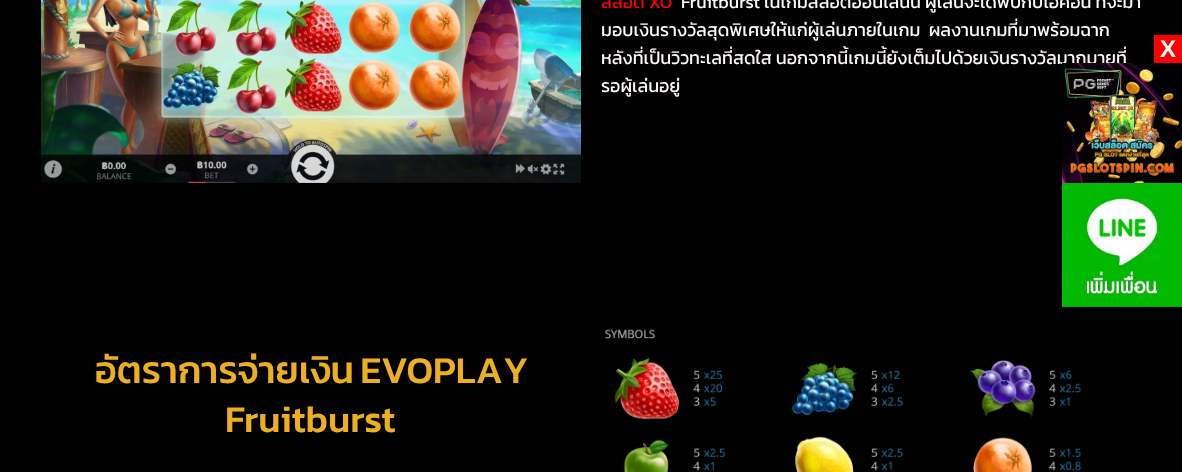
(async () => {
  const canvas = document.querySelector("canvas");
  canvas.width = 1182;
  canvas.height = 472;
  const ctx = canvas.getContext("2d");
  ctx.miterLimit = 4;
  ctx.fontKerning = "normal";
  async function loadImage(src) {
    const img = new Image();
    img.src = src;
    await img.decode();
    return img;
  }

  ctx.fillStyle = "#000000";
  ctx.fillRect(0, 0, 1182, 472);
  ctx.drawImage(await loadImage("img/1.png"), 41, 0, 540, 184);
  ctx.drawImage(await loadImage("img/2.png"), 604, 329, 478, 143);
  ctx.fillStyle = "#ff0000";
  ctx.fillRect(1154, 35, 28, 28);
  ctx.drawImage(await loadImage("img/4.png"), 1062, 183, 120, 124);
  ctx.font = "18px Kanit";
  ctx.fillText("สล็อต XO", 601, 8);
  ctx.fillStyle = "#fff9f9";
  for (const [text, x, y] of [
    ["Fruitburst ในเกมสล็อตออนไลน์นี้ ผู้เล่นจะได้พบกับไอคอน ที่จะมา", 681, 8],
    ["มอบเงินรางวัลสุดพิเศษให้แก่ผู้เล่นภายในเกม  ผลงานเกมที่มาพร้อมฉาก", 601, 36],
    ["หลังที่เป็นวิวทะเลที่สดใส นอกจากนี้เกมนี้ยังเต็มไปด้วยเงินรางวัลมากมายที่", 601, 64],
    ["รอผู้เล่นอยู่", 601, 92],
  ]) {
    ctx.fillText(text, x, y);
  }
  ctx.wordSpacing = "-2px";
  ctx.font = "500 38px Kanit";
  ctx.fillStyle = "#ecaf1f";
  ctx.fillText("อัตราการจ่ายเงิน EVOPLAY", 95, 383);
  ctx.wordSpacing = "0px";
  ctx.fillText("Fruitburst", 225, 432);
  ctx.font = "bold 24px Liberation Sans";
  ctx.fillStyle = "#ffffff";
  ctx.fillText("X", 1160, 57);
  ctx.drawImage(await loadImage("img/3.png"), 1062, 63, 120, 120);
})();
